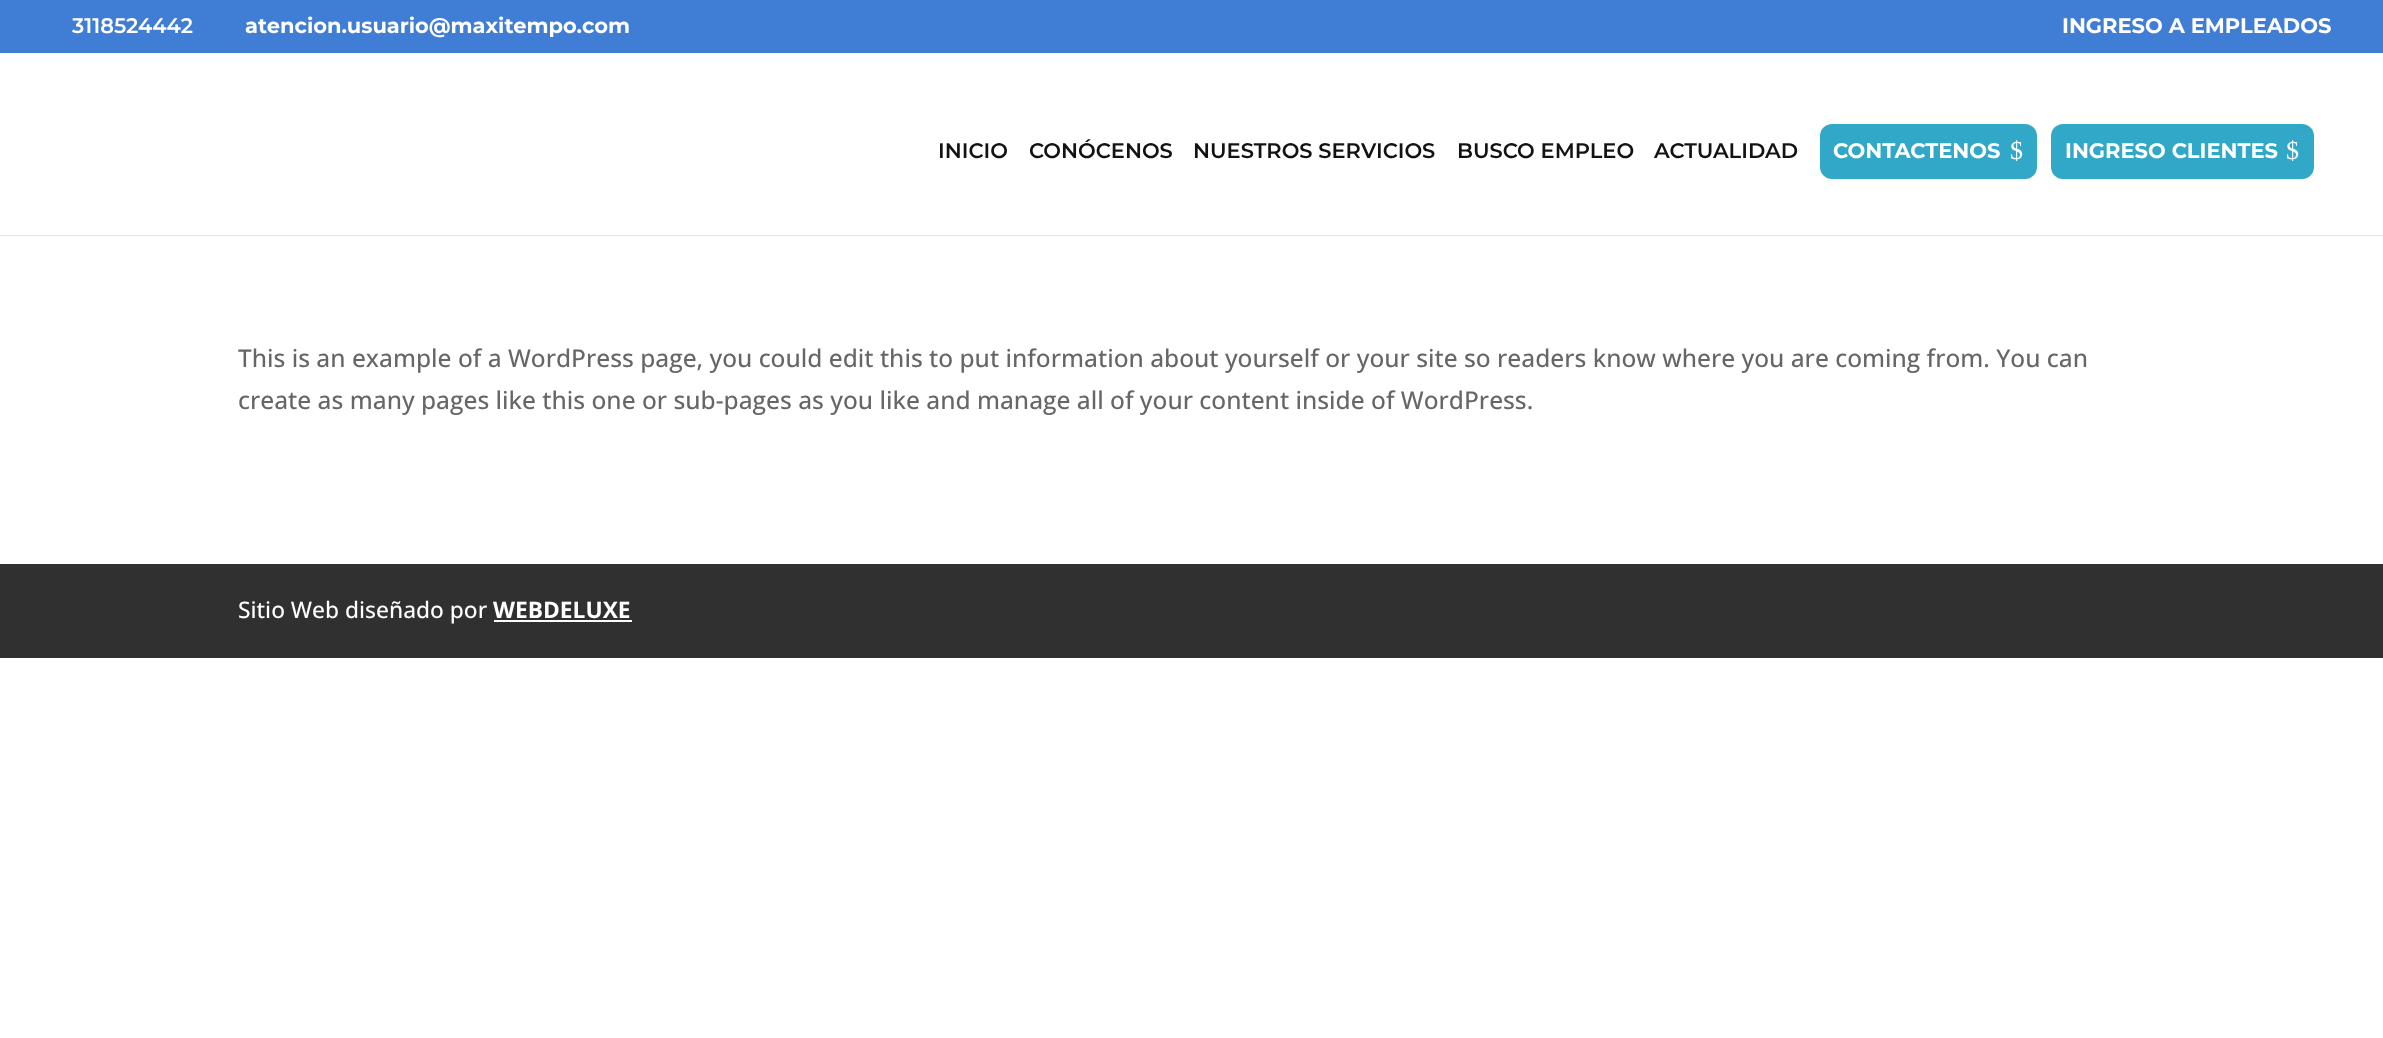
(async () => {
  const canvas = document.querySelector("canvas");
  canvas.width = 2383;
  canvas.height = 1038;
  const ctx = canvas.getContext("2d");
  ctx.miterLimit = 4;
  ctx.fontKerning = "normal";
  let path;

  ctx.fillStyle = "#ffffff";
  ctx.fillRect(0, 0, 2383, 1038);
  ctx.fillStyle = "#407dd5";
  ctx.fillRect(0, 0, 2383, 53);
  ctx.fillStyle = "#e6e6e6";
  path = new Path2D("M0 234V236H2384V54V234Z");
  ctx.fill(path);
  ctx.fillStyle = "#ffffff";
  ctx.fillRect(0, 234, 2383, 1);
  ctx.fillStyle = "#31a8c7";
  ctx.beginPath();
  ctx.roundRect(1820, 124, 217, 55, 12);
  ctx.fill();
  ctx.beginPath();
  ctx.roundRect(2051, 124, 263, 55, 12);
  ctx.fill();
  ctx.fillStyle = "#303030";
  ctx.fillRect(0, 564, 2383, 94);
  ctx.fillStyle = "#ffffff";
  ctx.fillRect(494, 620, 138, 2);
  ctx.font = "600 21px Montserrat";
  ctx.fillText("3118524442", 72, 33);
  ctx.font = "bold 21px Montserrat";
  ctx.fillText("atencion.usuario@maxitempo.com", 245, 33);
  ctx.fillText("INGRESO A EMPLEADOS", 2062, 33);
  ctx.font = "600 21px Montserrat";
  ctx.fillStyle = "#121212";
  for (const [text, x, y] of [
    ["INICIO", 938, 158],
    ["CONÓCENOS", 1029, 158],
    ["NUESTROS SERVICIOS", 1193, 158],
    ["BUSCO EMPLEO", 1457, 158],
    ["ACTUALIDAD", 1654, 158],
  ]) {
    ctx.fillText(text, x, y);
  }
  ctx.font = "bold 21px Montserrat";
  ctx.fillStyle = "#ffffff";
  ctx.fillText("CONTACTENOS", 1833, 158);
  ctx.font = "26px Liberation Serif";
  ctx.fillText("$", 2010, 159);
  ctx.font = "bold 21px Montserrat";
  ctx.fillText("INGRESO CLIENTES", 2065, 158);
  ctx.font = "26px Liberation Serif";
  ctx.fillText("$", 2286, 159);
  ctx.font = "500 24.5px Open Sans";
  ctx.fillStyle = "#666666";
  ctx.fillText("This is an example of a WordPress page, you could edit this to put information about yourself or your site so readers know where you are coming from. You can", 238, 367);
  ctx.fillText("create as many pages like this one or sub-pages as you like and manage all of your content inside of WordPress.", 238, 409);
  ctx.font = "500 22.75px Open Sans";
  ctx.fillStyle = "#ffffff";
  ctx.fillText("Sitio Web diseñado por", 238, 618);
  ctx.font = "bold 22.75px Open Sans";
  ctx.fillText("WEBDELUXE", 493, 618);
})();
